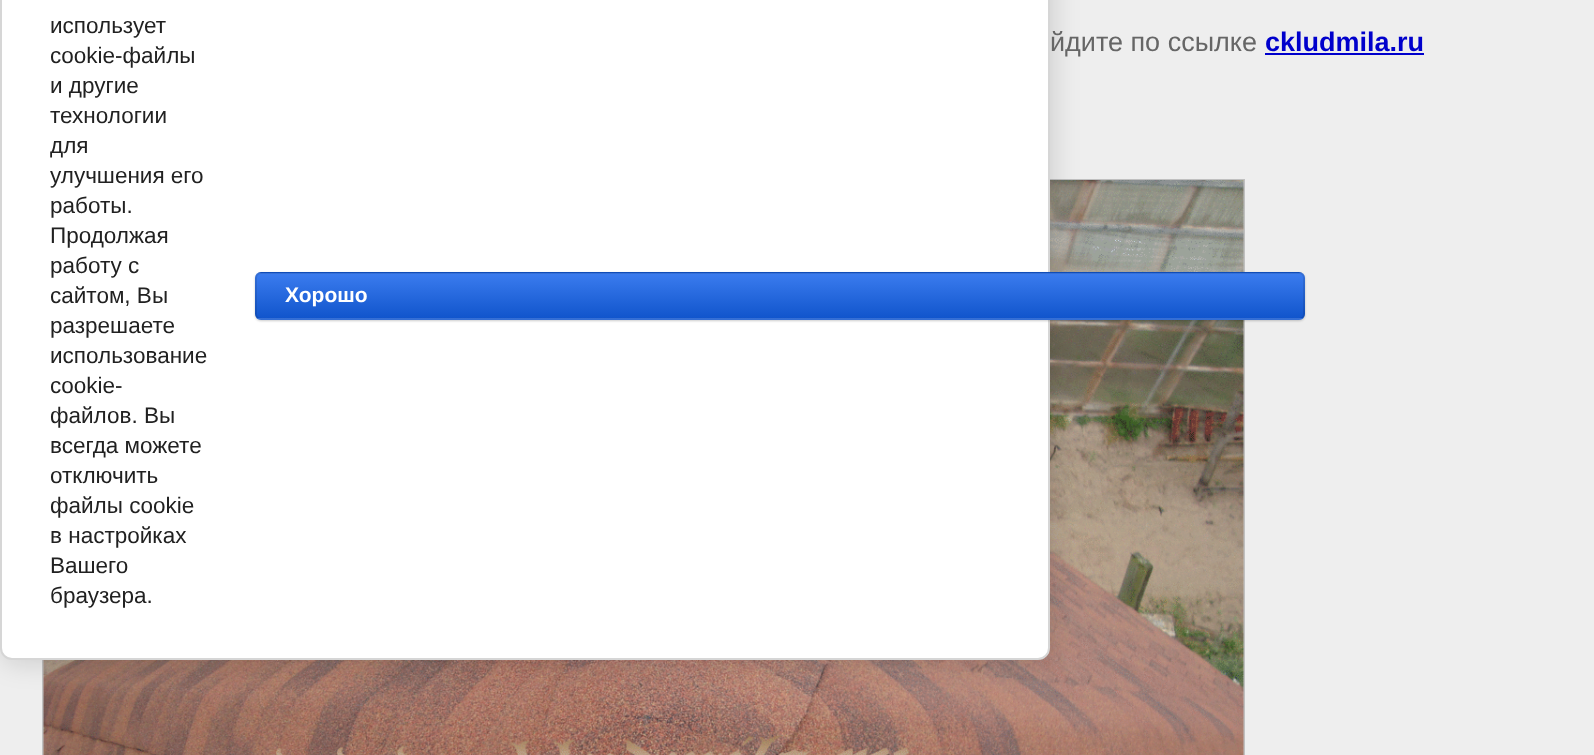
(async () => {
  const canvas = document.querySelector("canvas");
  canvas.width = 1594;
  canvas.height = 755;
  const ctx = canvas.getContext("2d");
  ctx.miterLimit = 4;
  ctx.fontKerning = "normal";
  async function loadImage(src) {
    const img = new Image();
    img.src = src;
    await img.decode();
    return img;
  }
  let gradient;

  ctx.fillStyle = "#eeeeee";
  ctx.fillRect(0, 0, 1594, 755);
  ctx.strokeStyle = "#c0c0c0";
  ctx.lineWidth = 2;
  ctx.strokeRect(43, 180, 1201, 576);
  ctx.drawImage(await loadImage("img/1.png"), 43, 180, 1201, 575);
  ctx.fillStyle = "rgba(0, 0, 0, 0.14)";
  ctx.filter = "blur(13.5px)";
  ctx.beginPath();
  ctx.roundRect(3, -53, 1050, 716, 12);
  ctx.fill();
  ctx.filter = "none";
  ctx.fillStyle = "#ffffff";
  ctx.beginPath();
  ctx.roundRect(1, -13, 1048, 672, 11);
  ctx.fill();
  ctx.strokeStyle = "#d6d6d6";
  ctx.stroke();
  ctx.fillStyle = "rgba(0, 0, 0, 0.2)";
  ctx.filter = "blur(1px)";
  ctx.beginPath();
  ctx.roundRect(255, 273, 1050, 48, 6);
  ctx.fill();
  ctx.filter = "none";
  ctx.save();
  ctx.beginPath();
  ctx.roundRect(255, 272, 1050, 48, 6);
  ctx.clip();
  gradient = ctx.createLinearGradient(780, 228, 780, 273);
  gradient.addColorStop(0, "#3b7cef");
  gradient.addColorStop(1, "#1155cc");
  ctx.fillStyle = gradient;
  ctx.fillRect(255, 272, 1050, 1);
  gradient = ctx.createLinearGradient(780, 273, 780, 318);
  gradient.addColorStop(0, "#3b7cef");
  gradient.addColorStop(1, "#1155cc");
  ctx.fillStyle = gradient;
  ctx.fillRect(255, 273, 1050, 45);
  gradient = ctx.createLinearGradient(780, 318, 780, 363);
  gradient.addColorStop(0, "#3b7cef");
  gradient.addColorStop(1, "#1155cc");
  ctx.fillStyle = gradient;
  ctx.fillRect(255, 318, 1050, 2);
  ctx.restore();
  ctx.beginPath();
  ctx.roundRect(256, 273, 1048, 46, 5);
  ctx.strokeStyle = "rgba(0, 0, 0, 0.1)";
  ctx.stroke();
  ctx.fillStyle = "#0000cc";
  ctx.fillRect(1265, 53, 159, 2);
  ctx.font = "22.5px Liberation Sans";
  ctx.fillStyle = "#212121";
  for (const [text, x, y] of [
    ["использует", 50, 33],
    ["cookie-файлы", 50, 63],
    ["и другие", 50, 93],
    ["технологии", 50, 123],
    ["для", 50, 153],
    ["улучшения его", 50, 183],
    ["работы.", 50, 213],
    ["Продолжая", 50, 243],
    ["работу с", 50, 273],
    ["сайтом, Вы", 50, 303],
    ["разрешаете", 50, 333],
    ["использование", 50, 363],
    ["cookie-", 50, 393],
    ["файлов. Вы", 50, 423],
    ["всегда можете", 50, 453],
    ["отключить", 50, 483],
    ["файлы cookie", 50, 513],
    ["в настройках", 50, 543],
    ["Вашего", 50, 573],
    ["браузера.", 50, 603],
  ]) {
    ctx.fillText(text, x, y);
  }
  ctx.font = "bold 21px Liberation Sans";
  ctx.fillStyle = "#ffffff";
  ctx.fillText("Хорошо", 285, 302);
  ctx.font = "27px Liberation Sans";
  ctx.fillStyle = "#666666";
  ctx.fillText("йдите по ссылке", 1050, 51);
  ctx.font = "bold 27px Liberation Sans";
  ctx.fillStyle = "#0000cc";
  ctx.fillText("ckludmila.ru", 1265, 51);
})();
